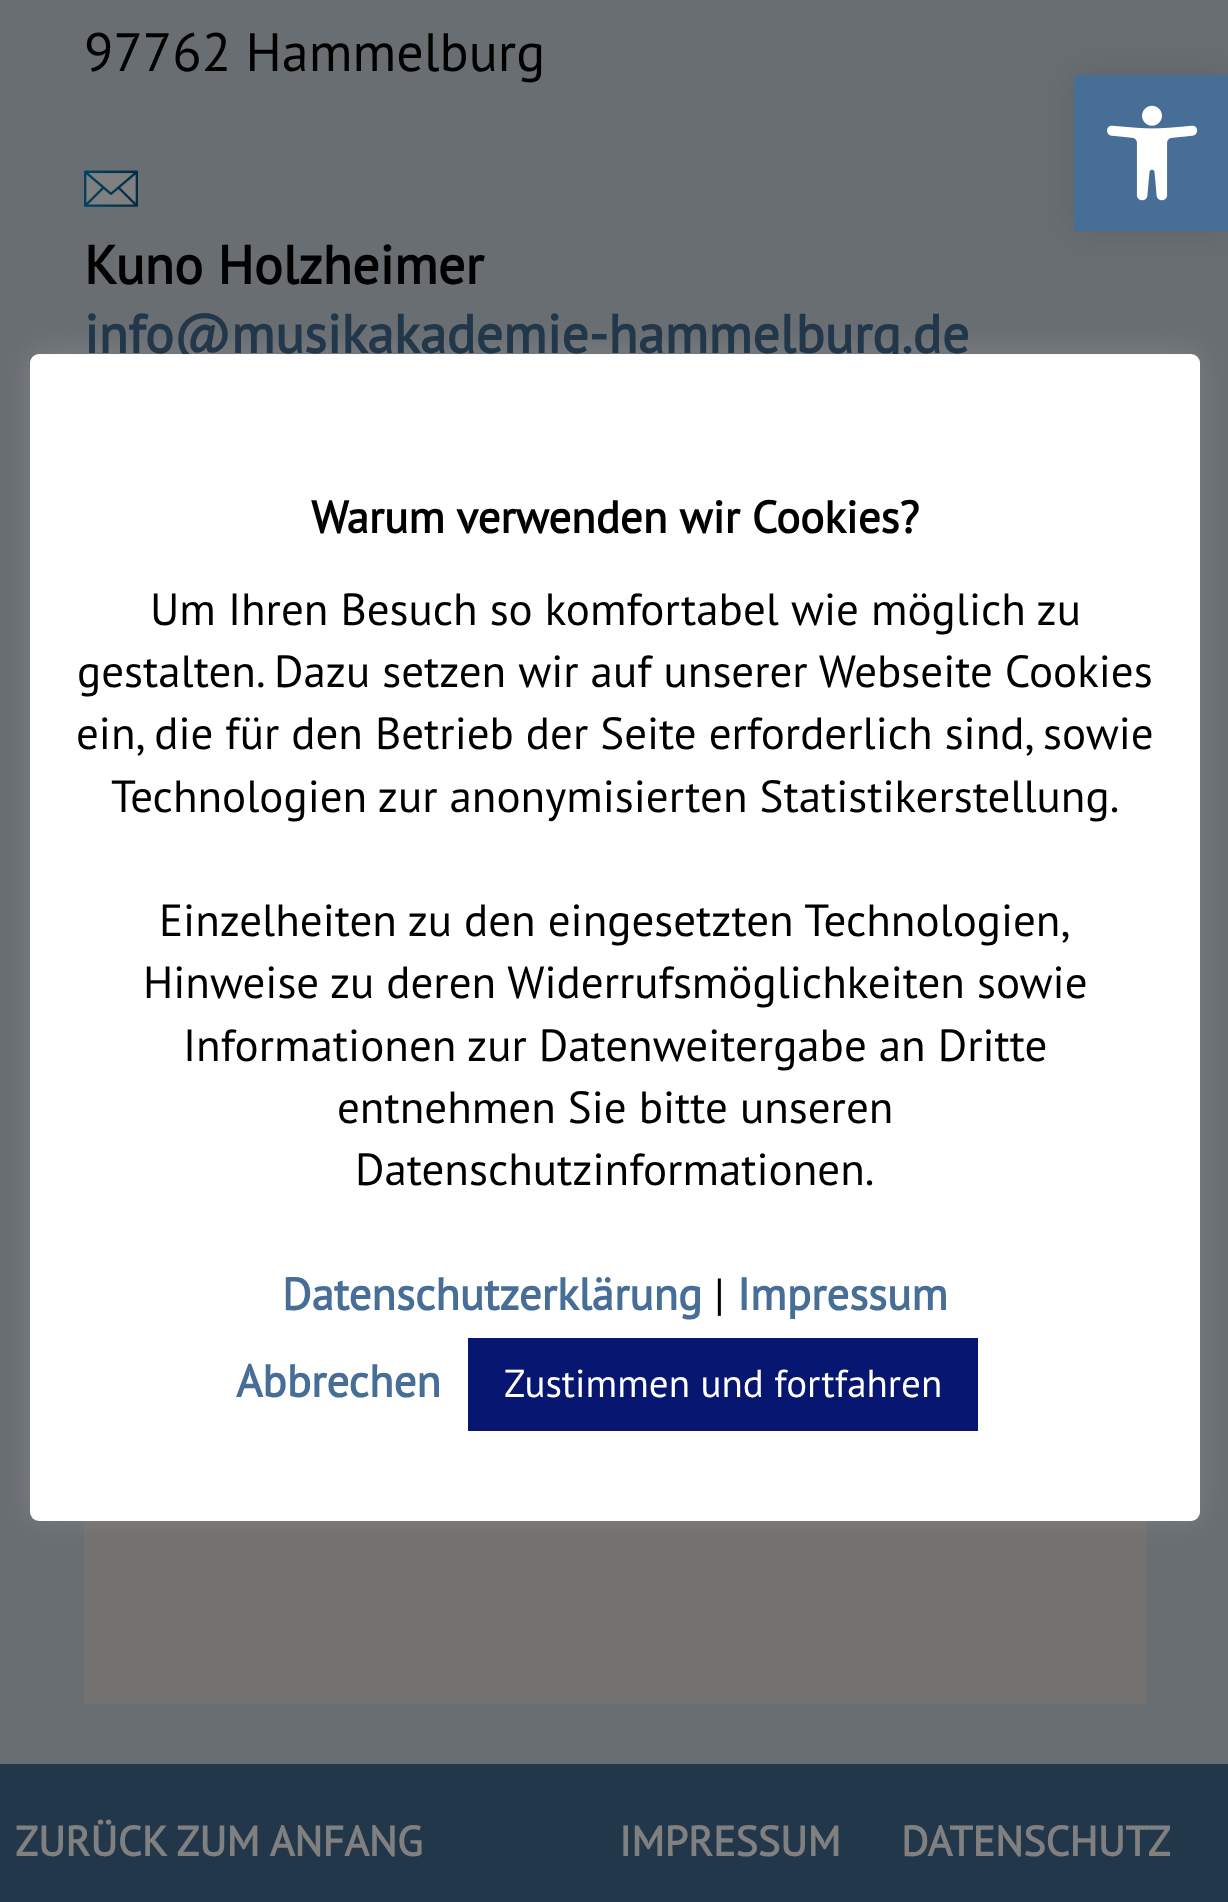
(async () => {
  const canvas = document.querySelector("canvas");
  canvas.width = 1228;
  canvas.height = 1902;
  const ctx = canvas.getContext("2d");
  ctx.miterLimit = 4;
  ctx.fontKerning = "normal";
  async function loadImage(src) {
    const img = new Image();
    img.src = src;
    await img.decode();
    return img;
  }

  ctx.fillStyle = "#696e73";
  ctx.fillRect(0, 0, 1228, 1902);
  ctx.fillStyle = "rgba(0, 0, 0, 0.1)";
  ctx.filter = "blur(15px)";
  ctx.beginPath();
  ctx.rect(1074, 75, 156, 156);
  ctx.fill();
  ctx.filter = "none";
  ctx.fillStyle = "#466e96";
  ctx.fillRect(1074, 75, 154, 156);
  ctx.drawImage(await loadImage("img/1.png"), 1107, 105, 91, 96);
  ctx.drawImage(await loadImage("img/2.png"), 84, 170, 54, 37);
  ctx.fillStyle = "#737270";
  ctx.fillRect(84, 1521, 1062, 183);
  ctx.fillStyle = "rgba(172, 171, 171, 0.3)";
  ctx.filter = "blur(15px)";
  ctx.beginPath();
  ctx.roundRect(30, 351, 1170, 1167, 9);
  ctx.fill();
  ctx.filter = "none";
  ctx.fillStyle = "#23374b";
  ctx.fillRect(0, 1764, 1228, 138);
  ctx.font = "54px PT Sans";
  ctx.fillStyle = "#000000";
  ctx.fillText("97762 Hammelburg", 84, 71);
  ctx.font = "bold 54px PT Sans";
  ctx.fillText("Kuno Holzheimer", 84, 284);
  ctx.fillStyle = "#23374b";
  ctx.fillText("info@musikakademie-hammelburg.de", 84, 353);
  ctx.fillStyle = "#ffffff";
  ctx.beginPath();
  ctx.roundRect(30, 354, 1170, 1167, 9);
  ctx.fill();
  ctx.font = "bold 45px PT Sans";
  ctx.fillStyle = "#000000";
  ctx.fillText("Warum verwenden wir Cookies?", 311, 533);
  ctx.font = "45px PT Sans";
  for (const [text, x, y] of [
    ["Um Ihren Besuch so komfortabel wie möglich zu", 150, 625],
    ["gestalten. Dazu setzen wir auf unserer Webseite Cookies", 77, 687],
    ["ein, die für den Betrieb der Seite erforderlich sind, sowie", 76, 749],
    ["Technologien zur anonymisierten Statistikerstellung.", 111, 812],
    ["Einzelheiten zu den eingesetzten Technologien,", 159, 936],
    ["Hinweise zu deren Widerrufsmöglichkeiten sowie", 143, 998],
    ["Informationen zur Datenweitergabe an Dritte", 183, 1061],
    ["entnehmen Sie bitte unseren", 337, 1123],
    ["Datenschutzinformationen.", 355, 1185],
  ]) {
    ctx.fillText(text, x, y);
  }
  ctx.font = "bold 45px PT Sans";
  ctx.fillStyle = "#466e96";
  ctx.fillText("Datenschutzerklärung", 282, 1310);
  ctx.font = "45px PT Sans";
  ctx.fillStyle = "#000000";
  ctx.fillText("|", 714, 1310);
  ctx.font = "bold 45px PT Sans";
  ctx.fillStyle = "#466e96";
  ctx.fillText("Impressum", 737, 1310);
  ctx.fillText("Abbrechen", 236, 1397);
  ctx.fillStyle = "#061671";
  ctx.fillRect(468, 1338, 510, 93);
  ctx.font = "39px PT Sans";
  ctx.fillStyle = "#ffffff";
  ctx.fillText("Zustimmen und fortfahren", 504, 1397);
  ctx.font = "bold 42px PT Sans";
  ctx.fillStyle = "#808080";
  for (const [text, x, y] of [
    ["ZURÜCK ZUM ANFANG", 15, 1856],
    ["IMPRESSUM", 619, 1856],
    ["DATENSCHUTZ", 901, 1856],
  ]) {
    ctx.fillText(text, x, y);
  }
})();
